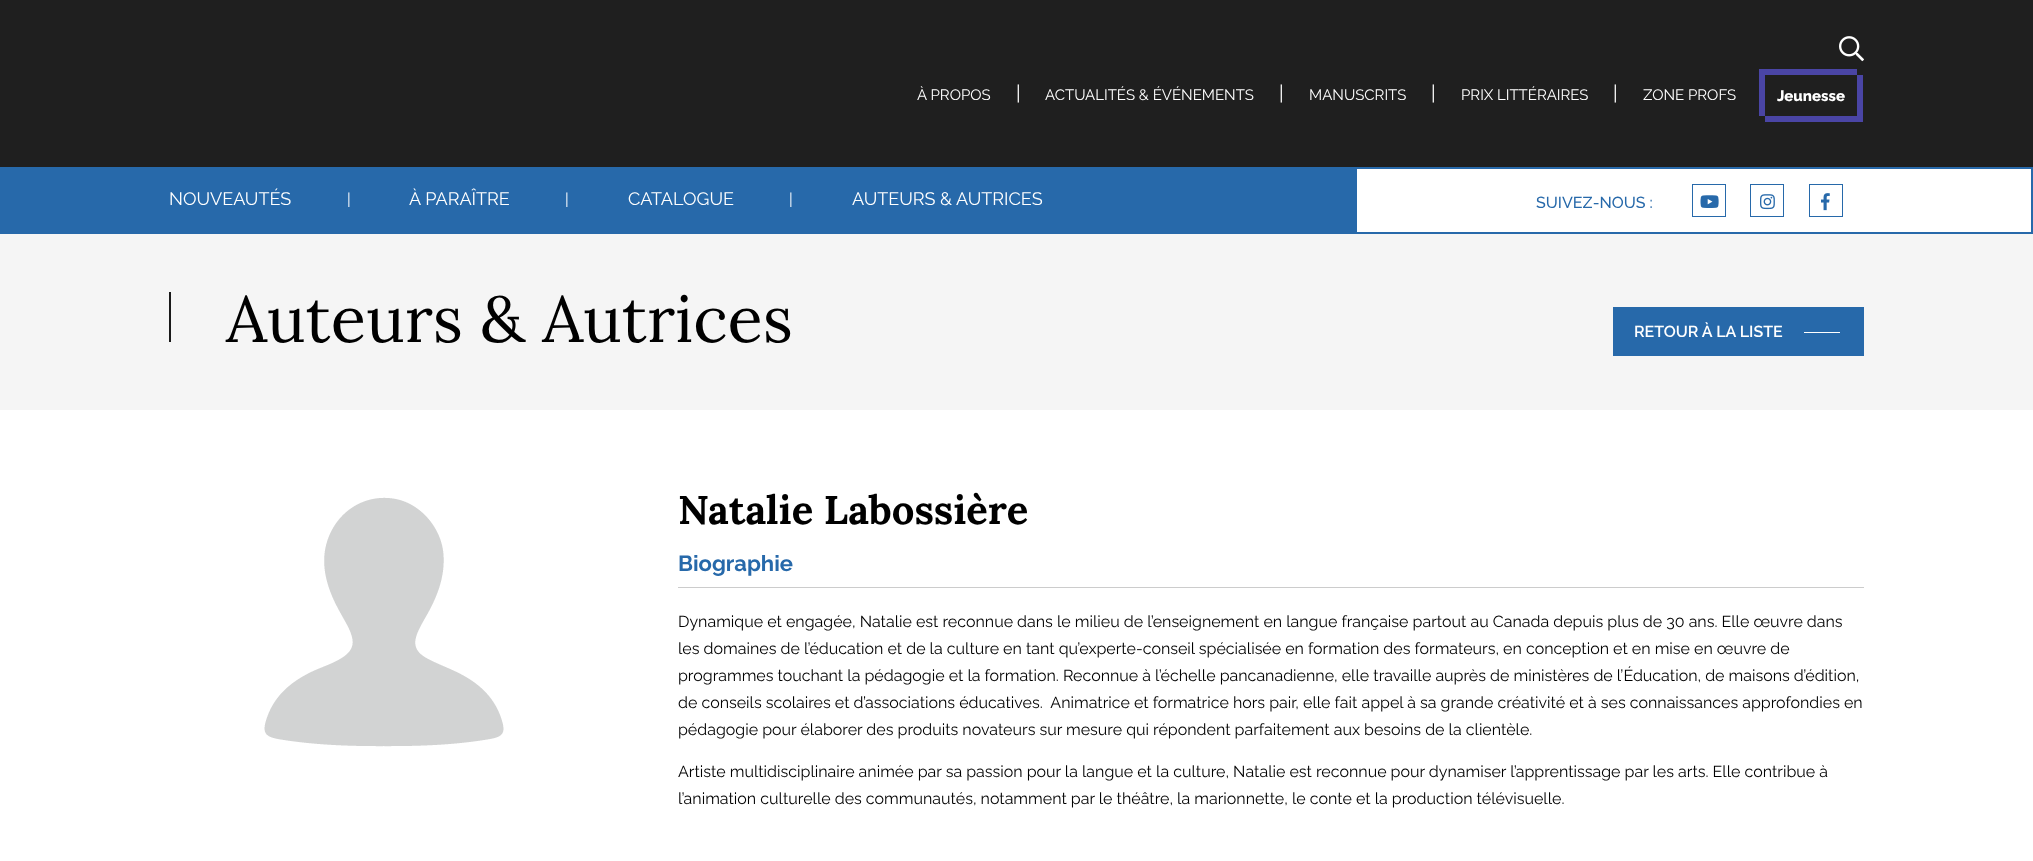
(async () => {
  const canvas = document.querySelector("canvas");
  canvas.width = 2033;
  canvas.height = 861;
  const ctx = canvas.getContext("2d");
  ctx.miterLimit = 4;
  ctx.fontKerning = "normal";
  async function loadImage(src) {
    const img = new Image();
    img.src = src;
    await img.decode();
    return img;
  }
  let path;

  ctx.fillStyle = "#ffffff";
  ctx.fillRect(0, 0, 2033, 861);
  ctx.fillStyle = "#1f1f1f";
  ctx.fillRect(0, 0, 2033, 167);
  ctx.drawImage(await loadImage("img/1.png"), 1839, 36, 25, 26);
  ctx.fillStyle = "#4a45a5";
  path = new Path2D("M1765 116V122H1863V75H1857V116Z");
  ctx.fill(path);
  ctx.save();
  ctx.beginPath();
  ctx.rect(1759, 69, 98, 47);
  ctx.clip();
  path = new Path2D("M1660-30H1956V215H1660ZM1765 75H1863V122H1765Z");
  ctx.fill(path, "evenodd");
  ctx.restore();
  ctx.fillStyle = "#2769aa";
  ctx.fillRect(0, 167, 1355, 67);
  ctx.strokeStyle = "#2769aa";
  ctx.lineWidth = 2;
  ctx.strokeRect(1356, 168, 676, 65);
  ctx.lineWidth = 1;
  ctx.strokeRect(1692.5, 184.5, 33, 32);
  ctx.drawImage(await loadImage("img/2.png"), 1700, 195, 19, 13);
  ctx.strokeRect(1750.5, 184.5, 33, 32);
  ctx.drawImage(await loadImage("img/3.png"), 1760, 194, 15, 16);
  ctx.strokeRect(1809.5, 184.5, 33, 32);
  ctx.drawImage(await loadImage("img/4.png"), 1821, 193, 9, 18);
  for (const [x, y, w, h, color] of [
    [0, 234, 2033, 176, "#f5f5f5"],
    [169, 292, 2, 50, "#1a1a1a"],
    [1613, 307, 251, 49, "#2769aa"],
    [1804, 332, 36, 1, "#ffffff"],
  ]) {
    ctx.fillStyle = color;
    ctx.fillRect(x, y, w, h);
  }
  ctx.drawImage(await loadImage("img/5.png"), 264, 497, 240, 250);
  ctx.fillStyle = "#cccccc";
  ctx.fillRect(678, 587, 1186, 1);
  ctx.font = "15px Raleway";
  ctx.fillStyle = "#ffffff";
  ctx.fillText("À PROPOS", 917, 100);
  ctx.font = "20px Raleway";
  ctx.fillText("|", 1016, 100);
  ctx.font = "15px Raleway";
  ctx.fillText("ACTUALITÉS & ÉVÉNEMENTS", 1045, 100);
  ctx.font = "20px Raleway";
  ctx.fillText("|", 1279, 100);
  ctx.font = "15px Raleway";
  ctx.fillText("MANUSCRITS", 1309, 100);
  ctx.font = "20px Raleway";
  ctx.fillText("|", 1431, 100);
  ctx.font = "15px Raleway";
  ctx.fillText("PRIX LITTÉRAIRES", 1461, 100);
  ctx.font = "20px Raleway";
  ctx.fillText("|", 1613, 100);
  ctx.font = "15px Raleway";
  ctx.fillText("ZONE PROFS", 1643, 100);
  ctx.font = "800 15px Raleway";
  ctx.fillText("Jeunesse", 1777, 101);
  ctx.font = "18px Raleway";
  ctx.fillText("NOUVEAUTÉS", 169, 205);
  ctx.font = "16px Raleway";
  ctx.fillText("|", 347, 205);
  ctx.font = "18px Raleway";
  ctx.fillText("À PARAÎTRE", 409, 205);
  ctx.font = "16px Raleway";
  ctx.fillText("|", 565, 205);
  ctx.font = "18px Raleway";
  ctx.fillText("CATALOGUE", 628, 205);
  ctx.font = "16px Raleway";
  ctx.fillText("|", 789, 205);
  ctx.font = "18px Raleway";
  ctx.fillText("AUTEURS & AUTRICES", 852, 205);
  ctx.font = "500 16px Raleway";
  ctx.fillStyle = "#2769aa";
  ctx.fillText("SUIVEZ-NOUS :", 1536, 208);
  ctx.font = "65px Lora";
  ctx.fillStyle = "#000000";
  ctx.fillText("Auteurs & Autrices", 226, 342);
  ctx.font = "600 16px Raleway";
  ctx.fillStyle = "#ffffff";
  ctx.fillText("RETOUR À LA LISTE", 1634, 337);
  ctx.font = "bold 40px Lora";
  ctx.fillStyle = "#000000";
  ctx.fillText("Natalie Labossière", 678, 524);
  ctx.font = "bold 22px Raleway";
  ctx.fillStyle = "#2769aa";
  ctx.fillText("Biographie", 678, 571);
  ctx.font = "16px Raleway";
  ctx.fillStyle = "#000000";
  for (const [text, x, y] of [
    ["Dynamique et engagée, Natalie est reconnue dans le milieu de l’enseignement en langue française partout au Canada depuis plus de 30 ans. Elle œuvre dans", 678, 627],
    ["les domaines de l’éducation et de la culture en tant qu’experte-conseil spécialisée en formation des formateurs, en conception et en mise en œuvre de", 678, 654],
    ["programmes touchant la pédagogie et la formation. Reconnue à l’échelle pancanadienne, elle travaille auprès de ministères de l’Éducation, de maisons d’édition,", 678, 681],
    ["de conseils scolaires et d’associations éducatives.  Animatrice et formatrice hors pair, elle fait appel à sa grande créativité et à ses connaissances approfondies en", 678, 708],
    ["pédagogie pour élaborer des produits novateurs sur mesure qui répondent parfaitement aux besoins de la clientèle.", 678, 735],
    ["Artiste multidisciplinaire animée par sa passion pour la langue et la culture, Natalie est reconnue pour dynamiser l’apprentissage par les arts. Elle contribue à", 678, 777],
    ["l’animation culturelle des communautés, notamment par le théâtre, la marionnette, le conte et la production télévisuelle.", 678, 804],
  ]) {
    ctx.fillText(text, x, y);
  }
})();
